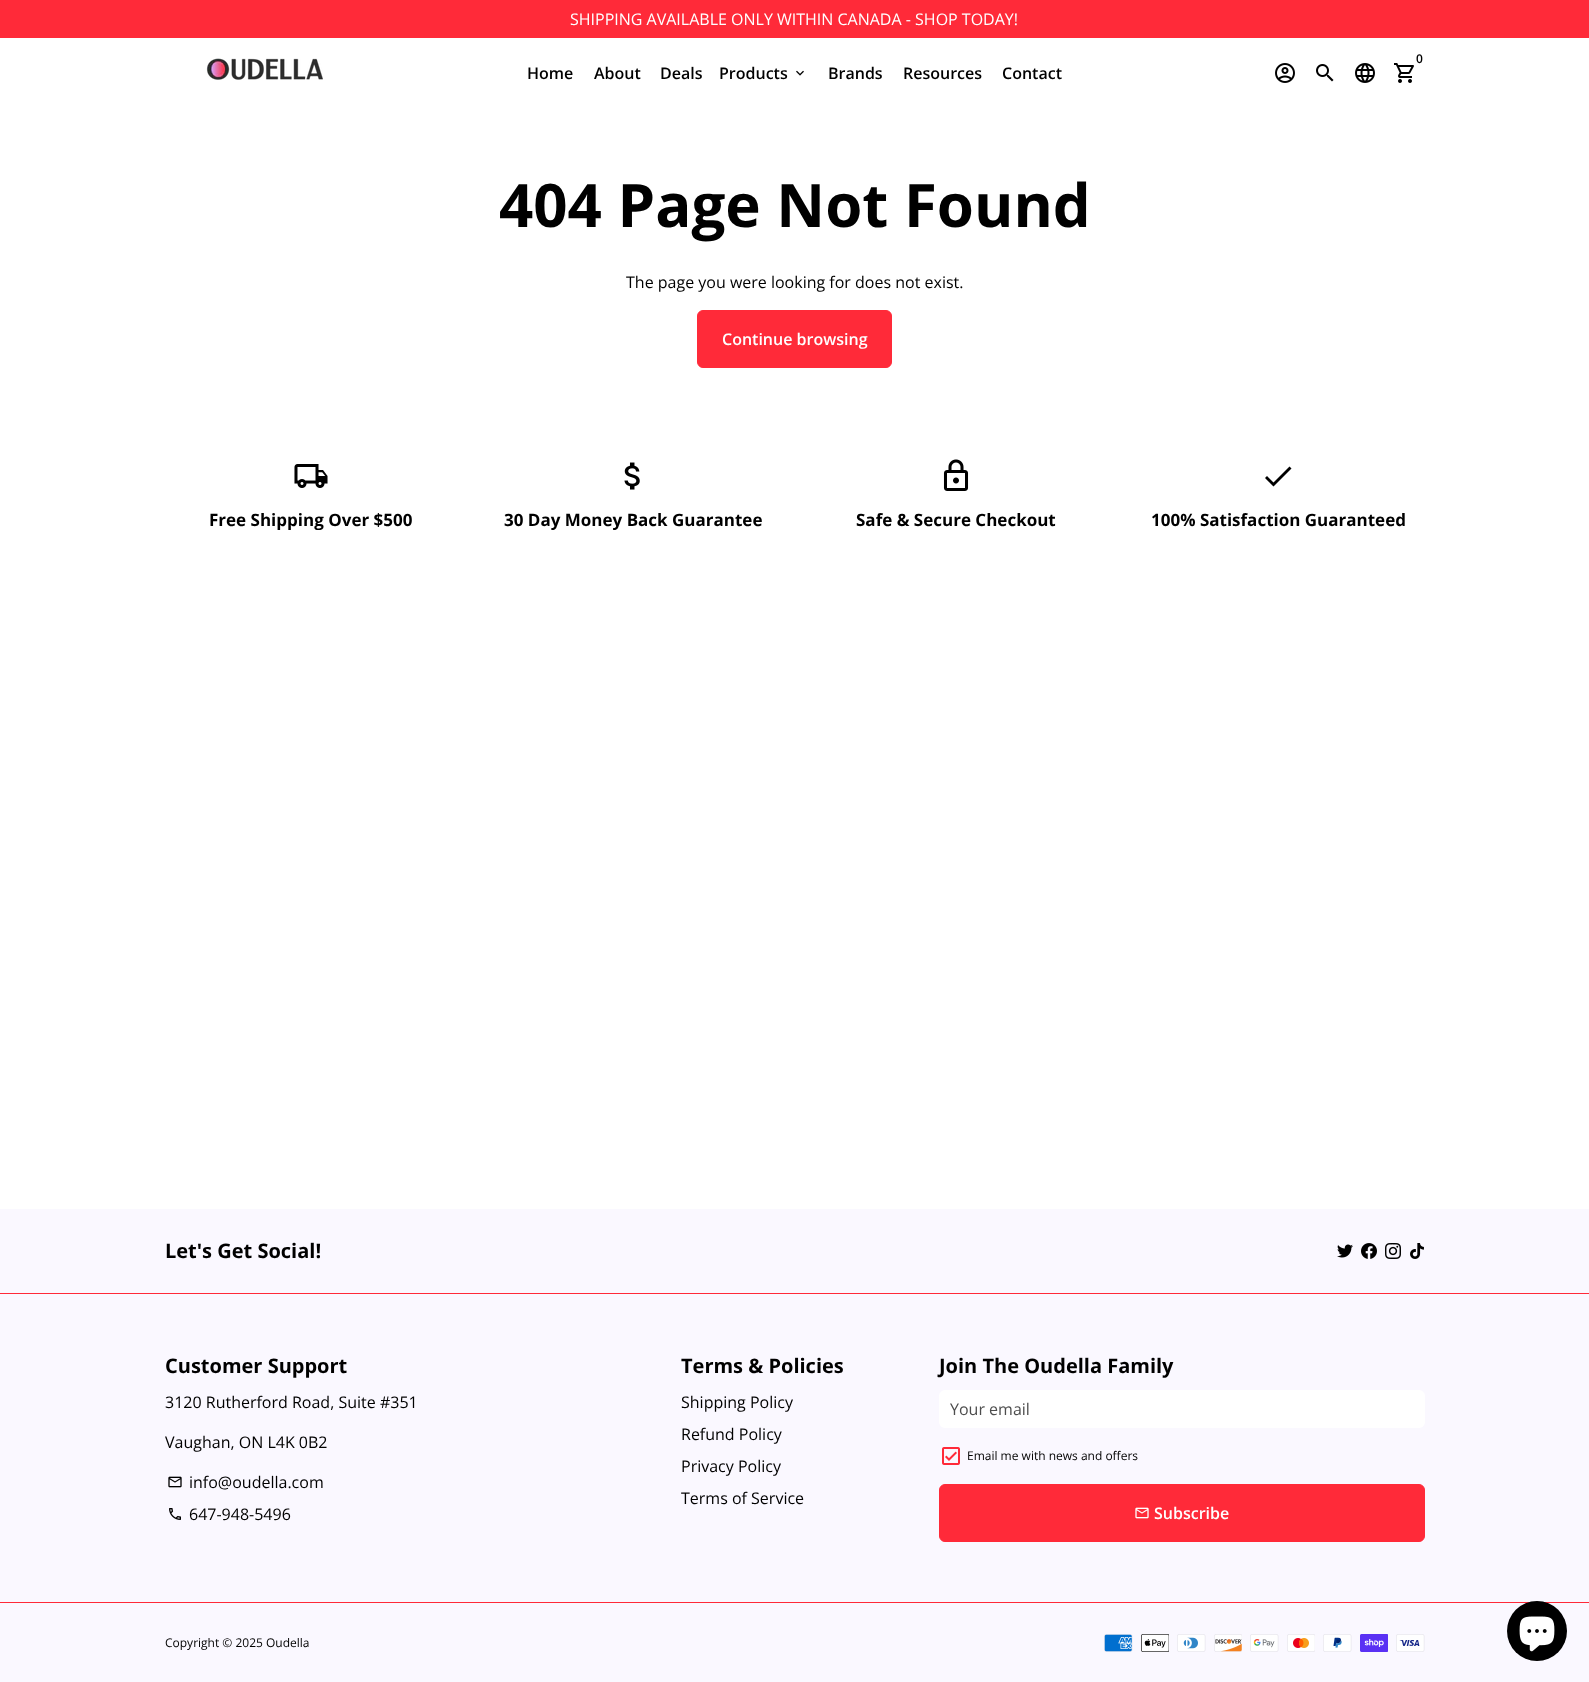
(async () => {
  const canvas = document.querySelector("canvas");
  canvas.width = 1589;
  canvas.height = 1682;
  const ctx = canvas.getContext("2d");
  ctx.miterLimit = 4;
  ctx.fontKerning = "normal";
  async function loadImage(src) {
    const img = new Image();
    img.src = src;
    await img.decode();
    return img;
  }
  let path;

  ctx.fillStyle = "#ffffff";
  ctx.fillRect(0, 0, 1589, 1682);
  ctx.fillStyle = "#ff2a39";
  ctx.fillRect(0, 0, 1589, 38);
  ctx.drawImage(await loadImage("img/1.png"), 206, 58, 117, 22);
  ctx.drawImage(await loadImage("img/2.png"), 796, 70, 8, 6);
  ctx.drawImage(await loadImage("img/3.png"), 1394, 63, 20, 20);
  ctx.drawImage(await loadImage("img/4.png"), 1275, 63, 20, 20);
  ctx.drawImage(await loadImage("img/5.png"), 1316, 64, 18, 18);
  ctx.drawImage(await loadImage("img/6.png"), 1355, 63, 20, 20);
  ctx.beginPath();
  ctx.roundRect(697.5, 310.5, 194, 57, 5.5);
  ctx.fill();
  ctx.strokeStyle = "#ff2a39";
  ctx.stroke();
  ctx.drawImage(await loadImage("img/7.png"), 294, 464, 34, 24);
  ctx.drawImage(await loadImage("img/8.png"), 624, 462, 16, 28);
  ctx.drawImage(await loadImage("img/9.png"), 943, 459, 26, 32);
  ctx.fillStyle = "#000000";
  path = new Path2D("M1273.5 482.5L1267 476L1265 478L1273.5 486.5L1291.5 468.5L1289.5 466.5Z");
  ctx.fill(path);
  ctx.fillStyle = "#faf8ff";
  ctx.fillRect(0, 1209, 1589, 473);
  ctx.fillStyle = "#ff2a39";
  ctx.fillRect(0, 1293, 1589, 1);
  ctx.drawImage(await loadImage("img/10.png"), 1337, 1244, 16, 14);
  ctx.drawImage(await loadImage("img/11.png"), 1361, 1243, 16, 16);
  ctx.drawImage(await loadImage("img/12.png"), 1385, 1243, 16, 16);
  ctx.drawImage(await loadImage("img/13.png"), 1410, 1243, 14, 16);
  ctx.drawImage(await loadImage("img/14.png"), 168, 1476, 14, 12);
  ctx.drawImage(await loadImage("img/15.png"), 169, 1508, 12, 12);
  ctx.fillStyle = "#ffffff";
  ctx.beginPath();
  ctx.roundRect(939, 1390, 486, 38, 6);
  ctx.fill();
  ctx.drawImage(await loadImage("img/16.png"), 942, 1447, 18, 18);
  ctx.fillStyle = "#ff2a39";
  ctx.beginPath();
  ctx.roundRect(939.5, 1484.5, 485, 57, 5.5);
  ctx.fill();
  ctx.stroke();
  ctx.drawImage(await loadImage("img/17.png"), 1135, 1507, 14, 12);
  ctx.fillRect(0, 1602, 1589, 1);
  ctx.drawImage(await loadImage("img/18.png"), 1104, 1634, 29, 18);
  ctx.drawImage(await loadImage("img/19.png"), 1141, 1634, 28, 18);
  ctx.drawImage(await loadImage("img/20.png"), 1177, 1634, 29, 18);
  ctx.drawImage(await loadImage("img/21.png"), 1214, 1634, 28, 18);
  ctx.drawImage(await loadImage("img/22.png"), 1250, 1634, 29, 18);
  ctx.drawImage(await loadImage("img/23.png"), 1287, 1634, 28, 18);
  ctx.drawImage(await loadImage("img/24.png"), 1323, 1634, 29, 18);
  ctx.drawImage(await loadImage("img/25.png"), 1360, 1634, 28, 18);
  ctx.drawImage(await loadImage("img/26.png"), 1396, 1634, 29, 18);
  ctx.fillStyle = "#000000";
  ctx.beginPath();
  ctx.arc(1537, 1631, 30, 0, Math.PI * 2);
  ctx.fill();
  ctx.drawImage(await loadImage("img/27.png"), 1519, 1616, 36, 36);
  ctx.font = "16px Open Sans";
  ctx.fillStyle = "#ffffff";
  ctx.fillText("SHIPPING AVAILABLE ONLY WITHIN CANADA - SHOP TODAY!", 570, 25);
  ctx.font = "600 16px Open Sans";
  ctx.fillStyle = "#000000";
  for (const [text, x, y] of [
    ["Home", 527, 79],
    ["About", 594, 79],
    ["Deals", 660, 79],
    ["Products", 719, 79],
    ["Brands", 828, 79],
    ["Resources", 903, 79],
    ["Contact", 1002, 79],
  ]) {
    ctx.fillText(text, x, y);
  }
  ctx.font = "600 12px Open Sans";
  ctx.fillText("0", 1416, 63);
  ctx.font = "bold 60px Open Sans";
  ctx.fillText("404 Page Not Found", 499, 227);
  ctx.font = "16px Open Sans";
  ctx.fillText("The page you were looking for does not exist.", 626, 288);
  ctx.font = "600 16px Open Sans";
  ctx.fillStyle = "#ffffff";
  ctx.fillText("Continue browsing", 722, 345);
  ctx.font = "bold 17px Open Sans";
  ctx.fillStyle = "#000000";
  for (const [text, x, y] of [
    ["Free Shipping Over $500", 209, 526],
    ["30 Day Money Back Guarantee", 504, 526],
    ["Safe & Secure Checkout", 856, 526],
    ["100% Satisfaction Guaranteed", 1151, 526],
  ]) {
    ctx.fillText(text, x, y);
  }
  ctx.font = "bold 20px Open Sans";
  ctx.fillText("Let's Get Social!", 165, 1258);
  ctx.fillText("Customer Support", 165, 1373);
  ctx.font = "16px Open Sans";
  for (const [text, x, y] of [
    ["3120 Rutherford Road, Suite #351", 165, 1408],
    ["Vaughan, ON L4K 0B2", 165, 1448],
    ["info@oudella.com", 189, 1488],
    ["647-948-5496", 189, 1520],
  ]) {
    ctx.fillText(text, x, y);
  }
  ctx.font = "bold 20px Open Sans";
  ctx.fillText("Terms & Policies", 681, 1373);
  ctx.font = "16px Open Sans";
  for (const [text, x, y] of [
    ["Shipping Policy", 681, 1408],
    ["Refund Policy", 681, 1440],
    ["Privacy Policy", 681, 1472],
    ["Terms of Service", 681, 1504],
  ]) {
    ctx.fillText(text, x, y);
  }
  ctx.font = "bold 20px Open Sans";
  ctx.fillText("Join The Oudella Family", 939, 1373);
  ctx.font = "16px Open Sans";
  ctx.fillStyle = "#4d4d4d";
  ctx.fillText("Your email", 950, 1415);
  ctx.font = "12px Open Sans";
  ctx.fillStyle = "#000000";
  ctx.fillText("Email me with news and offers", 967, 1460);
  ctx.font = "600 16px Open Sans";
  ctx.fillStyle = "#ffffff";
  ctx.fillText("Subscribe", 1154, 1519);
  ctx.font = "12px Open Sans";
  ctx.fillStyle = "#000000";
  ctx.fillText("Copyright © 2025 Oudella", 165, 1647);
})();
